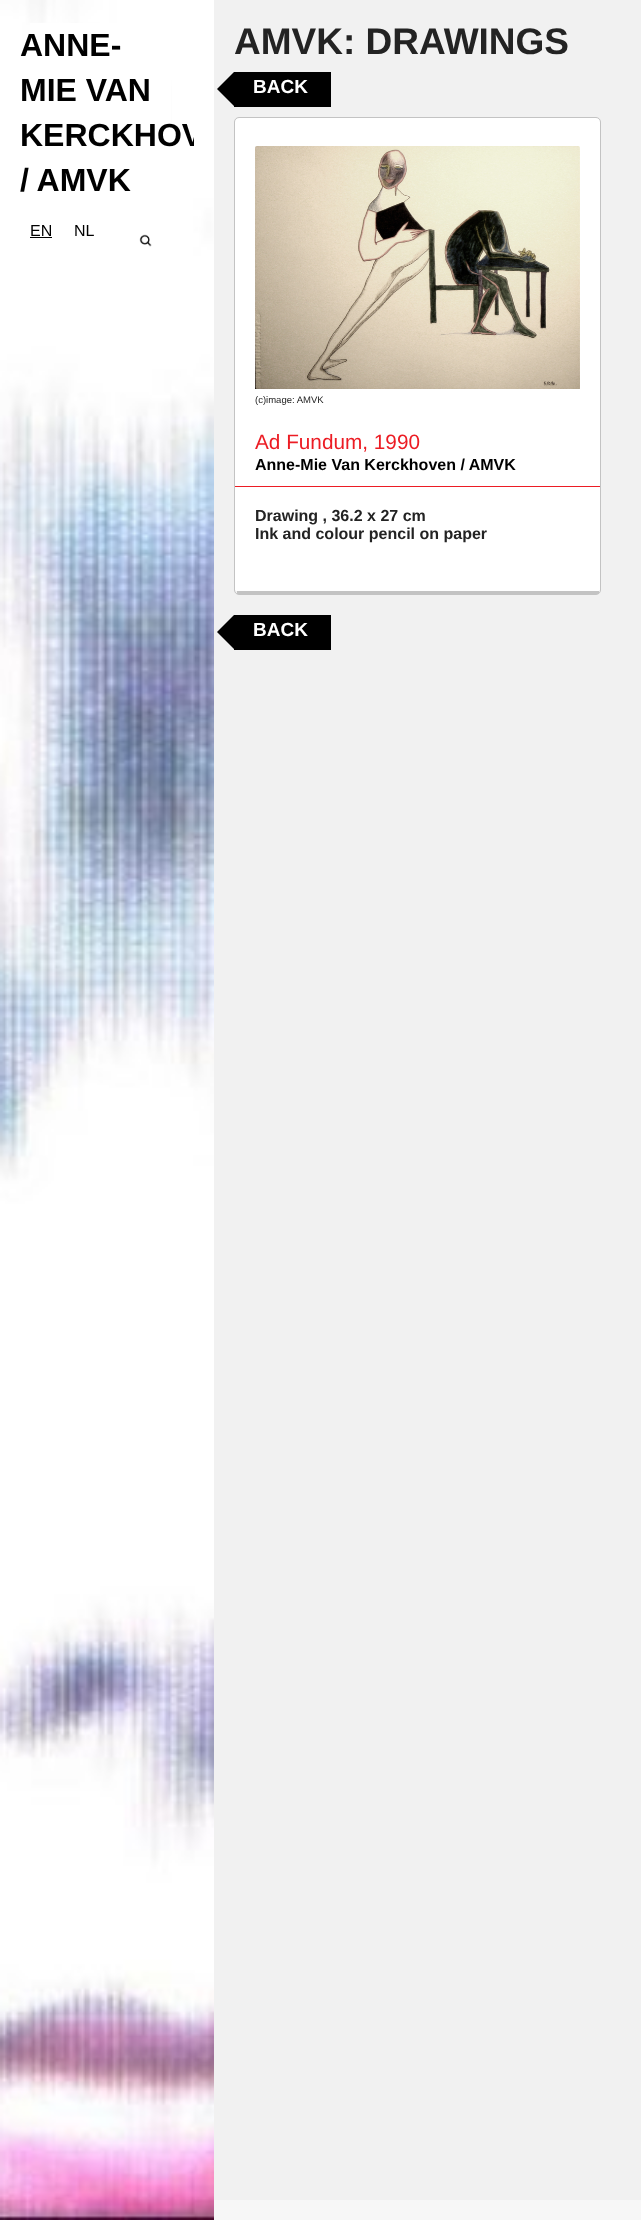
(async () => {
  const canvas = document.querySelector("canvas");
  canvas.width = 641;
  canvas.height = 2220;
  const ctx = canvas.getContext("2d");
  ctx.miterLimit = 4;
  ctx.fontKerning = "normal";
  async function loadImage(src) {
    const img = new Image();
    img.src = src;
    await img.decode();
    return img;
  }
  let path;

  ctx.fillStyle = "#f7f7f7";
  ctx.fillRect(0, 0, 641, 2220);
  ctx.drawImage(await loadImage("img/1.png"), 0, 0, 214, 2220);
  ctx.fillStyle = "#ffffff";
  ctx.fillRect(30, 23, 141, 106);
  ctx.fillStyle = "#000000";
  ctx.fillRect(30, 237, 22, 1);
  ctx.drawImage(await loadImage("img/2.png"), 139, 234, 13, 13);
  ctx.fillStyle = "#f1f1f1";
  ctx.fillRect(214, 0, 427, 2200);
  ctx.fillStyle = "#000000";
  ctx.fillRect(234, 72, 97, 35);
  path = new Path2D("M234 72V106L217 89Z");
  ctx.fill(path);
  ctx.fillStyle = "#ffffff";
  path = new Path2D("M239 118H596C598 118 600 120 600 122V590C600 591 598 591 596 591H239C237 591 235 591 235 590V122C235 120 237 118 239 118Z");
  ctx.fill(path);
  ctx.beginPath();
  ctx.roundRect(234.5, 117.5, 366, 477, 4.5);
  ctx.strokeStyle = "#c3c3c3";
  ctx.stroke();
  ctx.fillStyle = "#c3c3c3";
  ctx.fillRect(237, 591, 362, 3);
  ctx.drawImage(await loadImage("img/3.png"), 255, 146, 325, 243);
  ctx.fillStyle = "#ec1c24";
  ctx.fillRect(235, 486, 365, 1);
  ctx.fillStyle = "#000000";
  ctx.fillRect(234, 615, 97, 35);
  path = new Path2D("M234 615V649L217 632Z");
  ctx.fill(path);
  ctx.font = "bold 32px Liberation Sans";
  ctx.fillText("ANNE-", 20, 56);
  ctx.fillText("MIE VAN", 20, 101);
  ctx.save();
  ctx.beginPath();
  ctx.rect(0, 0, 194, 2220);
  ctx.clip();
  ctx.fillText("KERCKHOV", 20, 146);
  ctx.restore();
  ctx.fillText("/ AMVK", 20, 191);
  ctx.font = "16px Liberation Sans";
  ctx.fillText("EN", 30, 236);
  ctx.fillText("NL", 74, 236);
  ctx.font = "bold 37px Liberation Sans";
  ctx.fillStyle = "#232323";
  ctx.fillText("AMVK: DRAWINGS", 234, 54);
  ctx.font = "bold 19px Liberation Sans";
  ctx.fillStyle = "#ffffff";
  ctx.fillText("BACK", 253, 93);
  ctx.font = "9.5px Liberation Sans";
  ctx.fillStyle = "#232323";
  ctx.fillText("(c)image: AMVK", 255, 403);
  ctx.font = "20.75px Liberation Sans";
  ctx.fillStyle = "#ec1c24";
  ctx.fillText("Ad Fundum, 1990", 255, 449);
  ctx.font = "bold 16px Liberation Sans";
  ctx.fillStyle = "#000000";
  ctx.fillText("Anne-Mie Van Kerckhoven / AMVK", 255, 470);
  ctx.fillStyle = "#232323";
  ctx.fillText("Drawing , 36.2 x 27 cm", 255, 521);
  ctx.fillText("Ink and colour pencil on paper", 255, 539);
  ctx.font = "bold 19px Liberation Sans";
  ctx.fillStyle = "#ffffff";
  ctx.fillText("BACK", 253, 636);
})();
